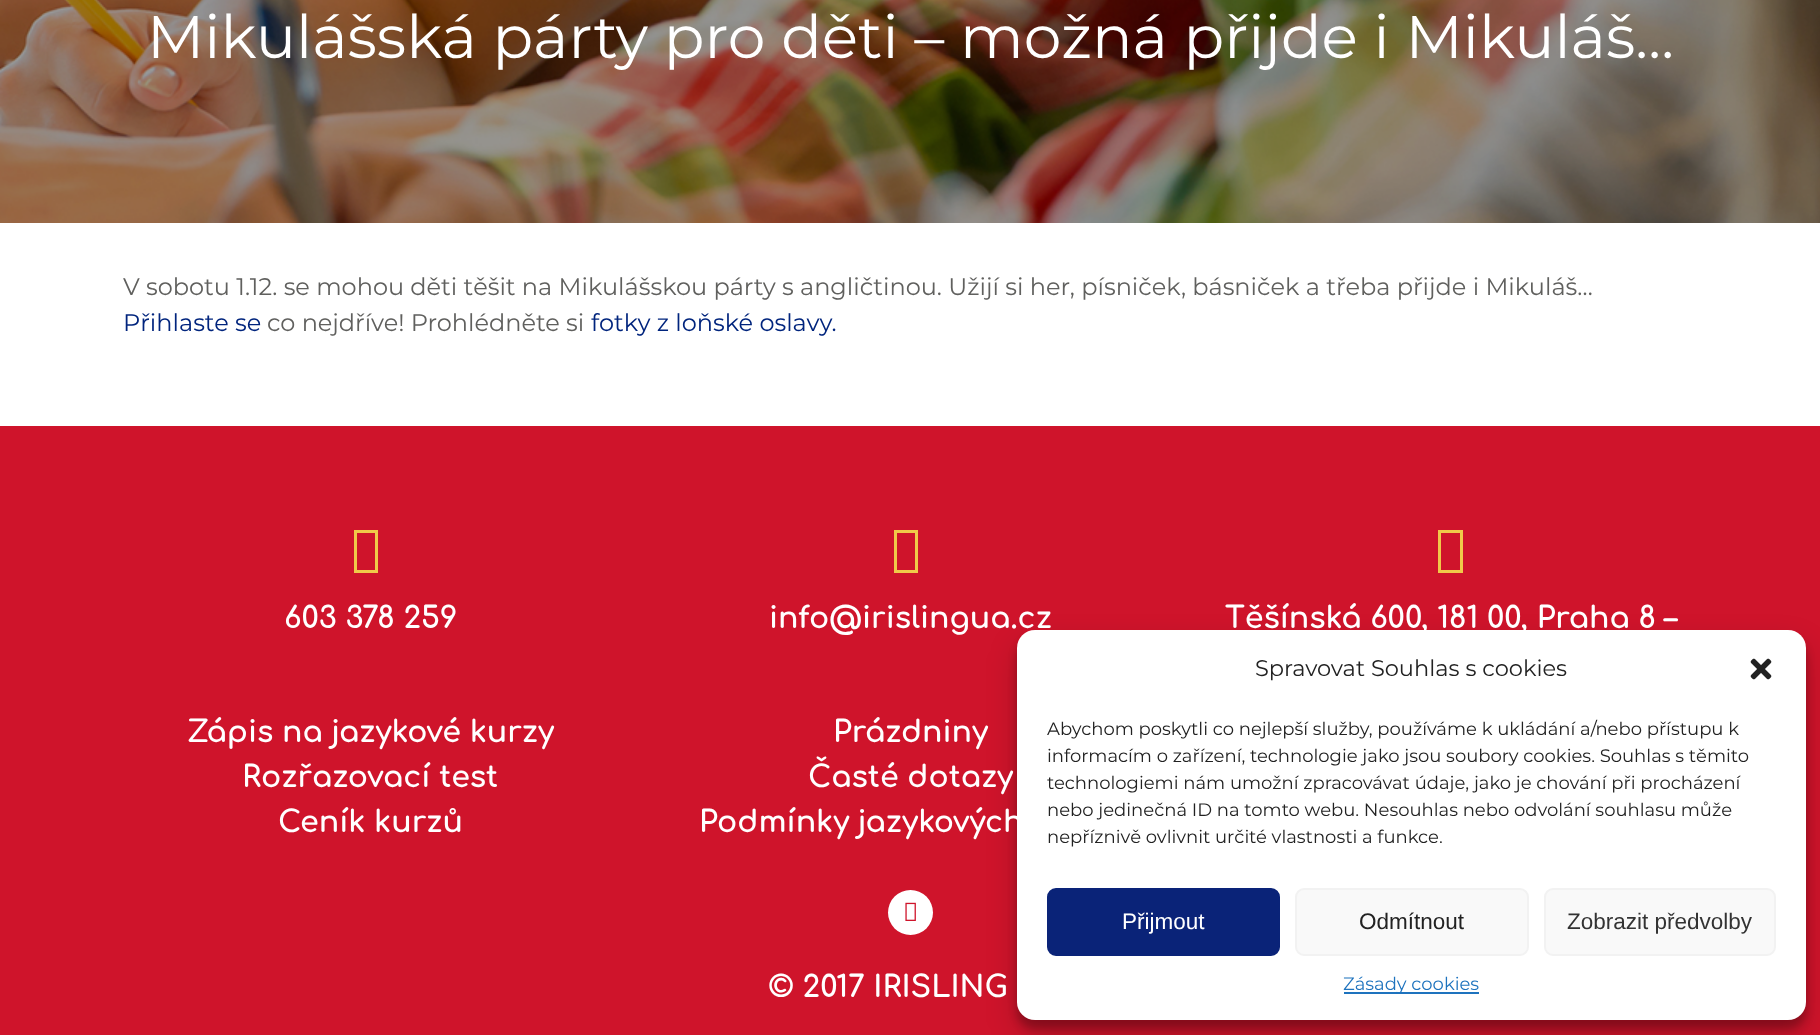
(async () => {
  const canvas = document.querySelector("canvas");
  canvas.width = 1820;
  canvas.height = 1035;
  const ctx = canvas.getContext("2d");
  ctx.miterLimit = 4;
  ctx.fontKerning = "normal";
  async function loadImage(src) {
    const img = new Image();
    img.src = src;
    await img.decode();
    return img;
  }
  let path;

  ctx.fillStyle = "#ffffff";
  ctx.fillRect(0, 0, 1820, 1035);
  ctx.drawImage(await loadImage("img/1.png"), 0, 0, 1820, 223);
  ctx.fillStyle = "#cf142b";
  ctx.fillRect(0, 426, 1820, 609);
  ctx.fillStyle = "#f0c949";
  path = new Path2D("M354 573V530H378V573ZM357 570H375V533H357Z");
  ctx.fill(path);
  path = new Path2D("M894 573V530H918V573ZM897 570H915V533H897Z");
  ctx.fill(path);
  path = new Path2D("M1438 573V530H1463V573ZM1441 570H1460V533H1441Z");
  ctx.fill(path);
  ctx.fillStyle = "#ffffff";
  ctx.beginPath();
  ctx.arc(910.5, 912.5, 22.5, 0, Math.PI * 2);
  ctx.fill();
  ctx.drawImage(await loadImage("img/2.png"), 905, 902, 11, 19);
  ctx.fillStyle = "rgba(0, 0, 0, 0.23)";
  ctx.filter = "blur(4.5px)";
  ctx.beginPath();
  ctx.roundRect(1017, 639, 789, 390, 18);
  ctx.fill();
  ctx.filter = "none";
  ctx.fillStyle = "rgba(0, 0, 0, 0.19)";
  ctx.filter = "blur(15px)";
  ctx.beginPath();
  ctx.roundRect(1017, 645, 789, 390, 18);
  ctx.fill();
  ctx.filter = "none";
  ctx.fillStyle = "#ffffff";
  ctx.beginPath();
  ctx.roundRect(1017, 630, 789, 390, 18);
  ctx.fill();
  ctx.drawImage(await loadImage("img/3.png"), 1750, 658, 22, 22);
  ctx.fillStyle = "#0a2378";
  ctx.beginPath();
  ctx.roundRect(1048, 889, 231, 66, 8);
  ctx.fill();
  ctx.strokeStyle = "#0a2378";
  ctx.lineWidth = 2;
  ctx.stroke();
  ctx.fillStyle = "#f9f9f9";
  ctx.beginPath();
  ctx.roundRect(1296, 889, 232, 66, 8);
  ctx.fill();
  ctx.strokeStyle = "#f2f2f2";
  ctx.stroke();
  ctx.beginPath();
  ctx.roundRect(1545, 889, 230, 66, 8);
  ctx.fill();
  ctx.stroke();
  ctx.fillStyle = "#1e73be";
  ctx.fillRect(1344, 992, 135, 2);
  ctx.font = "60px Montserrat";
  ctx.fillStyle = "#ffffff";
  ctx.fillText("Mikulášská párty pro děti – možná přijde i Mikuláš…", 147, 58);
  ctx.font = "24px Montserrat";
  ctx.fillStyle = "#60605e";
  ctx.fillText("V sobotu 1.12. se mohou děti těšit na Mikulášskou párty s angličtinou. Užijí si her, písniček, básniček a třeba přijde i Mikuláš…", 123, 295);
  ctx.fillStyle = "#00247d";
  ctx.fillText("Přihlaste se", 123, 331);
  ctx.fillStyle = "#60605e";
  ctx.fillText("co nejdříve! Prohlédněte si", 267, 331);
  ctx.fillStyle = "#00247d";
  ctx.fillText("fotky z loňské oslavy.", 591, 331);
  ctx.font = "bold 30px Comfortaa";
  ctx.fillStyle = "#ffffff";
  for (const [text, x, y] of [
    ["603 378 259", 284, 628],
    ["Zápis na jazykové kurzy", 187, 742],
    ["Rozřazovací test", 242, 787],
    ["Ceník kurzů", 278, 832],
    ["info@irislingua.cz", 769, 628],
    ["Prázdniny", 833, 742],
    ["Časté dotazy", 808, 787],
    ["Podmínky jazykových", 699, 832],
    ["Těšínská 600, 181 00, Praha 8 –", 1225, 628],
    ["© 2017 IRISLING", 768, 997],
  ]) {
    ctx.fillText(text, x, y);
  }
  ctx.font = "22.5px Montserrat";
  ctx.fillStyle = "#222222";
  ctx.fillText("Spravovat Souhlas s cookies", 1255, 676);
  ctx.font = "18px Montserrat";
  for (const [text, x, y] of [
    ["Abychom poskytli co nejlepší služby, používáme k ukládání a/nebo přístupu k", 1047, 735],
    ["informacím o zařízení, technologie jako jsou soubory cookies. Souhlas s těmito", 1047, 762],
    ["technologiemi nám umožní zpracovávat údaje, jako je chování při procházení", 1047, 789],
    ["nebo jedinečná ID na tomto webu. Nesouhlas nebo odvolání souhlasu může", 1047, 816],
    ["nepříznivě ovlivnit určité vlastnosti a funkce.", 1047, 843],
  ]) {
    ctx.fillText(text, x, y);
  }
  ctx.font = "22.5px Liberation Sans";
  ctx.fillStyle = "#ffffff";
  ctx.fillText("Přijmout", 1122, 929);
  ctx.fillStyle = "#222222";
  ctx.fillText("Odmítnout", 1359, 929);
  ctx.fillStyle = "#333333";
  ctx.fillText("Zobrazit předvolby", 1567, 929);
  ctx.font = "18px Montserrat";
  ctx.fillStyle = "#1e73be";
  ctx.fillText("Zásady cookies", 1343, 990);
})();
